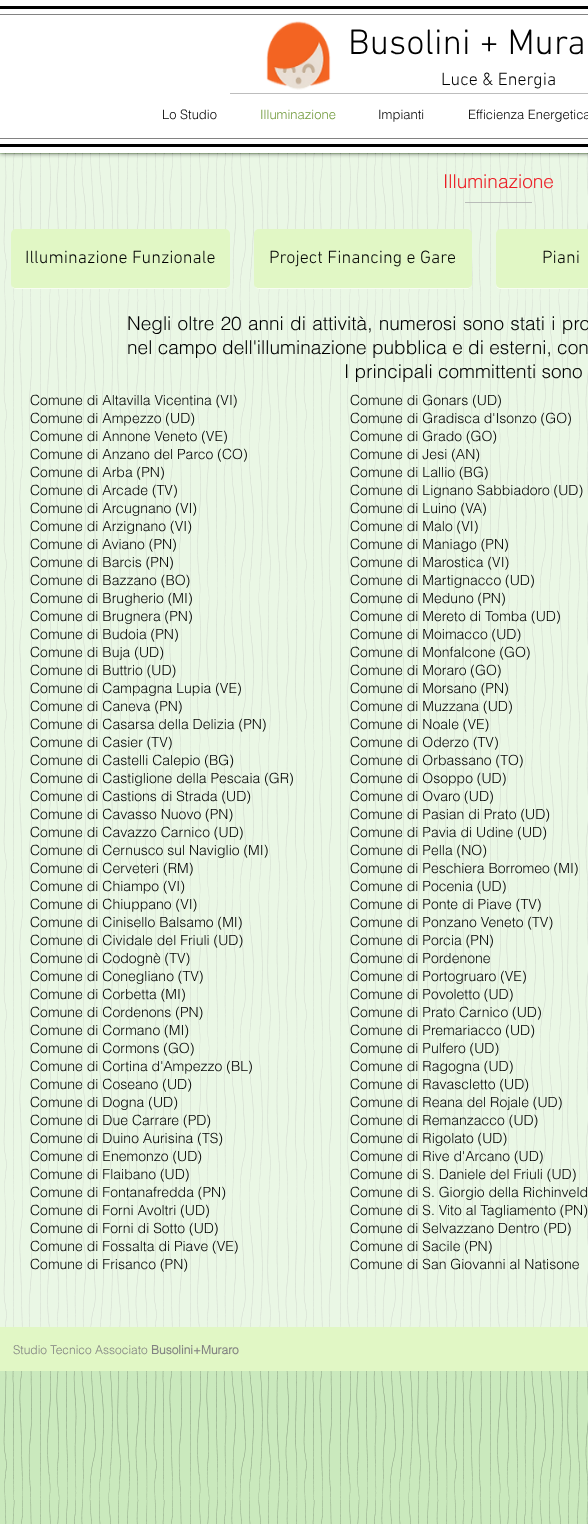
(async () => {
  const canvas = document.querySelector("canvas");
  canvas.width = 588;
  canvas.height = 1524;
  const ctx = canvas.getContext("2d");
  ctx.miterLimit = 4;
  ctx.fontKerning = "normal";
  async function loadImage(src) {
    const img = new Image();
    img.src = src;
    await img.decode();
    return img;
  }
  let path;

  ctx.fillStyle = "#cae9bd";
  ctx.fillRect(0, 0, 588, 1524);
  ctx.drawImage(await loadImage("img/2.png"), 3, 153, 585, 1371);
  ctx.fillStyle = "rgba(255, 255, 255, 0.61)";
  ctx.fillRect(0, 154, 588, 1173);
  ctx.fillStyle = "rgba(0, 0, 0, 0.7)";
  ctx.filter = "blur(2.5px)";
  ctx.beginPath();
  ctx.rect(0, 0, 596, 153);
  ctx.fill();
  ctx.filter = "none";
  for (const [x, y, w, h, color] of [
    [0, 0, 588, 153, "#ffffff"],
    [0, 6, 588, 3, "#000000"],
    [0, 144, 588, 3, "#000000"],
    [0, 14, 588, 1, "#828282"],
    [0, 138, 588, 1, "#828282"],
  ]) {
    ctx.fillStyle = color;
    ctx.fillRect(x, y, w, h);
  }
  ctx.drawImage(await loadImage("img/1.png"), 266, 21, 65, 69);
  ctx.fillStyle = "#bdbdbd";
  ctx.fillRect(230, 93, 358, 1);
  ctx.fillStyle = "rgba(175, 175, 175, 0.82)";
  ctx.fillRect(465, 202, 67, 1);
  ctx.fillStyle = "#e1f7c5";
  ctx.beginPath();
  ctx.roundRect(11, 229, 219, 60, 5);
  ctx.fill();
  ctx.fillStyle = "rgba(255, 255, 255, 0.75)";
  path = new Path2D("M11 283C11 286 13 289 16 289H226C229 288 230 286 230 283C230 286 228 288 225 288H16C13 288 11 286 11 283Z");
  ctx.fill(path);
  ctx.fillStyle = "#e1f7c5";
  ctx.beginPath();
  ctx.roundRect(254, 229, 218, 60, 5);
  ctx.fill();
  ctx.fillStyle = "rgba(255, 255, 255, 0.75)";
  path = new Path2D("M254 283C254 286 256 289 259 289H468C471 288 472 286 472 283C472 286 470 288 467 288H259C256 288 254 286 254 283Z");
  ctx.fill(path);
  ctx.fillStyle = "#e1f7c5";
  ctx.beginPath();
  ctx.roundRect(496, 229, 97, 60, 5);
  ctx.fill();
  ctx.fillStyle = "rgba(255, 255, 255, 0.75)";
  path = new Path2D("M496 283V284C496 287 498 289 501 289H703C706 289 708 287 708 284V283C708 286 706 288 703 288H501C498 288 496 286 496 283Z");
  ctx.fill(path);
  ctx.fillStyle = "#e1f7c5";
  ctx.fillRect(0, 1327, 588, 44);
  ctx.font = "300 36px 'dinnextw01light'";
  ctx.fillStyle = "#000000";
  ctx.fillText("Busolini + Mura", 348, 54);
  ctx.font = "300 18px 'dinnextw01light'";
  ctx.fillText("Luce & Energia", 441, 85);
  ctx.font = "300 13px helvetica";
  ctx.fillText("Lo Studio", 162, 119);
  ctx.fillStyle = "#719a3c";
  ctx.fillText("Illuminazione", 260, 119);
  ctx.fillStyle = "#000000";
  ctx.fillText("Impianti", 378, 119);
  ctx.fillText("Efficienza Energetica", 468, 119);
  ctx.font = "300 19px helvetica";
  ctx.fillStyle = "#ed1c24";
  ctx.fillText("Illuminazione", 443, 188);
  ctx.font = "300 18px 'dinnextw01light'";
  ctx.fillStyle = "#000000";
  for (const [text, x, y] of [
    ["Illuminazione Funzionale", 25, 263],
    ["Project Financing e Gare", 269, 263],
    ["Piani", 542, 263],
  ]) {
    ctx.fillText(text, x, y);
  }
  ctx.wordSpacing = "1px";
  ctx.font = "300 19px helvetica";
  ctx.fillText("Negli oltre 20 anni di attività, numerosi sono stati i pro", 127, 330);
  ctx.wordSpacing = "0px";
  ctx.fillText("nel campo dell'illuminazione pubblica e di esterni, con", 127, 354);
  ctx.fillText("I principali committenti sono", 344, 378);
  ctx.font = "300 14px helvetica";
  for (const [text, x, y] of [
    ["Comune di Altavilla Vicentina (VI)", 30, 405],
    ["Comune di Ampezzo (UD)", 30, 423],
    ["Comune di Annone Veneto (VE)", 30, 441],
    ["Comune di Anzano del Parco (CO)", 30, 459],
    ["Comune di Arba (PN)", 30, 477],
    ["Comune di Arcade (TV)", 30, 495],
    ["Comune di Arcugnano (VI)", 30, 513],
    ["Comune di Arzignano (VI)", 30, 531],
    ["Comune di Aviano (PN)", 30, 549],
    ["Comune di Barcis (PN)", 30, 567],
    ["Comune di Bazzano (BO)", 30, 585],
    ["Comune di Brugherio (MI)", 30, 603],
    ["Comune di Brugnera (PN)", 30, 621],
    ["Comune di Budoia (PN)", 30, 639],
    ["Comune di Buja (UD)", 30, 657],
    ["Comune di Buttrio (UD)", 30, 675],
    ["Comune di Campagna Lupia (VE)", 30, 693],
    ["Comune di Caneva (PN)", 30, 711],
    ["Comune di Casarsa della Delizia (PN)", 30, 729],
    ["Comune di Casier (TV)", 30, 747],
    ["Comune di Castelli Calepio (BG)", 30, 765],
    ["Comune di Castiglione della Pescaia (GR)", 30, 783],
    ["Comune di Castions di Strada (UD)", 30, 801],
    ["Comune di Cavasso Nuovo (PN)", 30, 819],
    ["Comune di Cavazzo Carnico (UD)", 30, 837],
    ["Comune di Cernusco sul Naviglio (MI)", 30, 855],
    ["Comune di Cerveteri (RM)", 30, 873],
    ["Comune di Chiampo (VI)", 30, 891],
    ["Comune di Chiuppano (VI)", 30, 909],
    ["Comune di Cinisello Balsamo (MI)", 30, 927],
    ["Comune di Cividale del Friuli (UD)", 30, 945],
    ["Comune di Codognè (TV)", 30, 963],
    ["Comune di Conegliano (TV)", 30, 981],
    ["Comune di Corbetta (MI)", 30, 999],
    ["Comune di Cordenons (PN)", 30, 1017],
    ["Comune di Cormano (MI)", 30, 1035],
    ["Comune di Cormons (GO)", 30, 1053],
    ["Comune di Cortina d'Ampezzo (BL)", 30, 1071],
    ["Comune di Coseano (UD)", 30, 1089],
    ["Comune di Dogna (UD)", 30, 1107],
    ["Comune di Due Carrare (PD)", 30, 1125],
    ["Comune di Duino Aurisina (TS)", 30, 1143],
    ["Comune di Enemonzo (UD)", 30, 1161],
    ["Comune di Flaibano (UD)", 30, 1179],
    ["Comune di Fontanafredda (PN)", 30, 1197],
    ["Comune di Forni Avoltri (UD)", 30, 1215],
    ["Comune di Forni di Sotto (UD)", 30, 1233],
    ["Comune di Fossalta di Piave (VE)", 30, 1251],
    ["Comune di Frisanco (PN)", 30, 1269],
    ["Comune di Gonars (UD)", 350, 405],
    ["Comune di Gradisca d'Isonzo (GO)", 350, 423],
    ["Comune di Grado (GO)", 350, 441],
    ["Comune di Jesi (AN)", 350, 459],
    ["Comune di Lallio (BG)", 350, 477],
    ["Comune di Lignano Sabbiadoro (UD)", 350, 495],
    ["Comune di Luino (VA)", 350, 513],
    ["Comune di Malo (VI)", 350, 531],
    ["Comune di Maniago (PN)", 350, 549],
    ["Comune di Marostica (VI)", 350, 567],
    ["Comune di Martignacco (UD)", 350, 585],
    ["Comune di Meduno (PN)", 350, 603],
    ["Comune di Mereto di Tomba (UD)", 350, 621],
    ["Comune di Moimacco (UD)", 350, 639],
    ["Comune di Monfalcone (GO)", 350, 657],
    ["Comune di Moraro (GO)", 350, 675],
    ["Comune di Morsano (PN)", 350, 693],
    ["Comune di Muzzana (UD)", 350, 711],
    ["Comune di Noale (VE)", 350, 729],
    ["Comune di Oderzo (TV)", 350, 747],
    ["Comune di Orbassano (TO)", 350, 765],
    ["Comune di Osoppo (UD)", 350, 783],
    ["Comune di Ovaro (UD)", 350, 801],
    ["Comune di Pasian di Prato (UD)", 350, 819],
    ["Comune di Pavia di Udine (UD)", 350, 837],
    ["Comune di Pella (NO)", 350, 855],
    ["Comune di Peschiera Borromeo (MI)", 350, 873],
    ["Comune di Pocenia (UD)", 350, 891],
    ["Comune di Ponte di Piave (TV)", 350, 909],
    ["Comune di Ponzano Veneto (TV)", 350, 927],
    ["Comune di Porcia (PN)", 350, 945],
    ["Comune di Pordenone", 350, 963],
    ["Comune di Portogruaro (VE)", 350, 981],
    ["Comune di Povoletto (UD)", 350, 999],
    ["Comune di Prato Carnico (UD)", 350, 1017],
    ["Comune di Premariacco (UD)", 350, 1035],
    ["Comune di Pulfero (UD)", 350, 1053],
    ["Comune di Ragogna (UD)", 350, 1071],
    ["Comune di Ravascletto (UD)", 350, 1089],
    ["Comune di Reana del Rojale (UD)", 350, 1107],
    ["Comune di Remanzacco (UD)", 350, 1125],
    ["Comune di Rigolato (UD)", 350, 1143],
    ["Comune di Rive d'Arcano (UD)", 350, 1161],
    ["Comune di S. Daniele del Friuli (UD)", 350, 1179],
    ["Comune di S. Giorgio della Richinveld", 350, 1197],
    ["Comune di S. Vito al Tagliamento (PN)", 350, 1215],
    ["Comune di Selvazzano Dentro (PD)", 350, 1233],
    ["Comune di Sacile (PN)", 350, 1251],
    ["Comune di San Giovanni al Natisone", 350, 1269],
  ]) {
    ctx.fillText(text, x, y);
  }
  ctx.font = "300 12px helvetica";
  ctx.fillStyle = "#828282";
  ctx.fillText("Studio Tecnico Associato", 13, 1354);
  ctx.font = "bold 12px helvetica";
  ctx.fillText("Busolini+Muraro", 151, 1354);
})();
